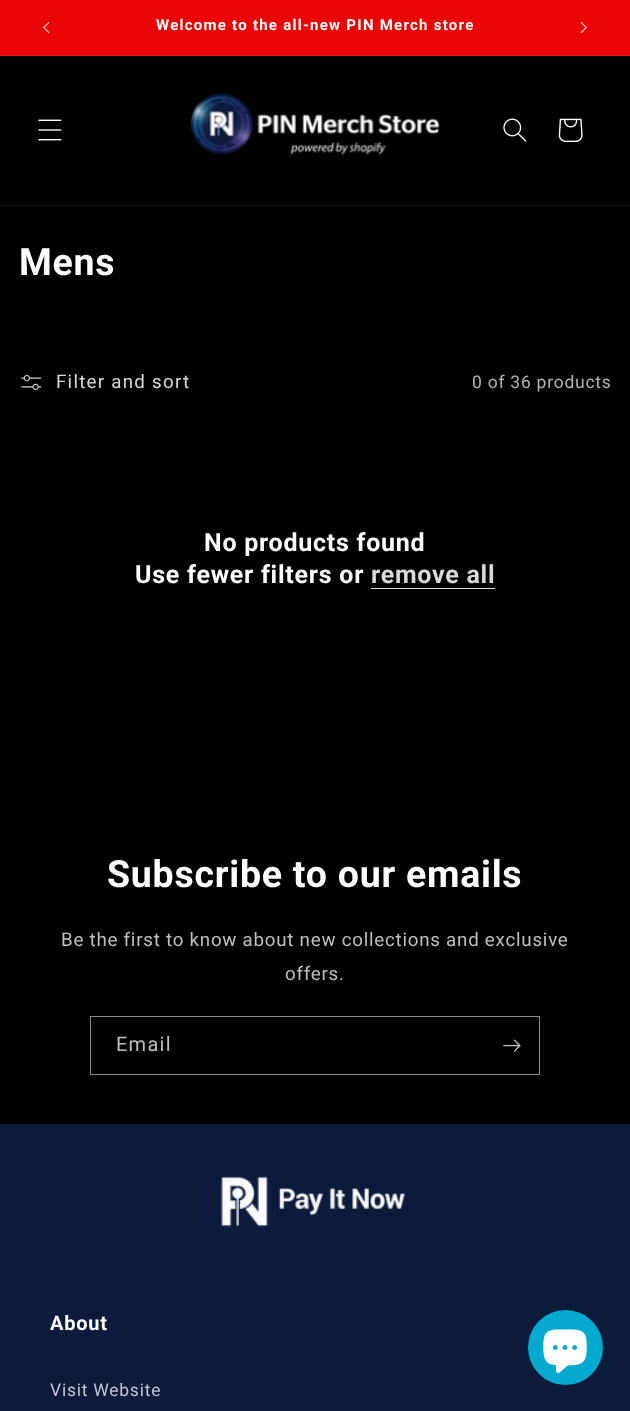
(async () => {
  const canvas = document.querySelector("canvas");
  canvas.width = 630;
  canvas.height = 1411;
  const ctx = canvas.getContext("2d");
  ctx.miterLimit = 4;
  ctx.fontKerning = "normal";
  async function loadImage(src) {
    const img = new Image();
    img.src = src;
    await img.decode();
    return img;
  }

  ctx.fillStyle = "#000000";
  ctx.fillRect(0, 0, 630, 1411);
  ctx.fillStyle = "#ea0404";
  ctx.fillRect(0, 0, 630, 55);
  ctx.fillStyle = "#ec1818";
  ctx.fillRect(0, 55, 630, 1);
  ctx.drawImage(await loadImage("img/1.png"), 43, 21, 7, 12);
  ctx.drawImage(await loadImage("img/2.png"), 580, 22, 7, 11);
  ctx.fillStyle = "#141414";
  ctx.fillRect(0, 205, 630, 1);
  ctx.drawImage(await loadImage("img/3.png"), 38, 119, 24, 22);
  ctx.drawImage(await loadImage("img/4.png"), 190, 93, 250, 62);
  ctx.drawImage(await loadImage("img/5.png"), 503, 118, 24, 24);
  ctx.drawImage(await loadImage("img/6.png"), 558, 118, 25, 24);
  ctx.drawImage(await loadImage("img/7.png"), 21, 375, 21, 15);
  ctx.fillStyle = "#d9d9d9";
  ctx.fillRect(371, 588, 124, 1);
  ctx.strokeStyle = "#8c8c8c";
  ctx.strokeRect(90.5, 1016.5, 449, 58);
  ctx.drawImage(await loadImage("img/8.png"), 503, 1039, 18, 13);
  ctx.fillStyle = "#0c1b3c";
  ctx.fillRect(0, 1124, 630, 287);
  ctx.drawImage(await loadImage("img/9.png"), 221, 1176, 185, 51);
  ctx.fillStyle = "#03a9ce";
  ctx.beginPath();
  ctx.arc(565.5, 1347.5, 37.5, 0, Math.PI * 2);
  ctx.fill();
  ctx.drawImage(await loadImage("img/10.png"), 543, 1329, 44, 44);
  ctx.letterSpacing = "1.25px";
  ctx.font = "bold 15px Roboto";
  ctx.fillStyle = "#ffffff";
  ctx.fillText("Welcome to the all-new PIN Merch store", 156, 30);
  ctx.letterSpacing = "0.75px";
  ctx.font = "bold 37.5px Roboto";
  ctx.fillText("Mens", 19, 275);
  ctx.letterSpacing = "1.25px";
  ctx.font = "18.75px Roboto";
  ctx.fillStyle = "#d9d9d9";
  ctx.fillText("Filter and sort", 56, 388);
  ctx.letterSpacing = "0.75px";
  ctx.font = "17.5px Roboto";
  ctx.fillStyle = "#b3b3b3";
  ctx.fillText("0 of 36 products", 472, 388);
  ctx.font = "bold 25px Roboto";
  ctx.fillStyle = "#ffffff";
  ctx.fillText("No products found", 204, 551);
  ctx.fillText("Use fewer filters or", 135, 583);
  ctx.fillStyle = "#d9d9d9";
  ctx.fillText("remove all", 371, 583);
  ctx.font = "bold 37.5px Roboto";
  ctx.fillStyle = "#ffffff";
  ctx.fillText("Subscribe to our emails", 107, 887);
  ctx.font = "18.75px Roboto";
  ctx.fillStyle = "#bfbfbf";
  ctx.fillText("Be the first to know about new collections and exclusive", 61, 946);
  ctx.fillText("offers.", 285, 980);
  ctx.letterSpacing = "1.25px";
  ctx.font = "20px Roboto";
  ctx.fillText("Email", 116, 1051);
  ctx.letterSpacing = "0.75px";
  ctx.font = "bold 20px Roboto";
  ctx.fillStyle = "#ffffff";
  ctx.fillText("About", 50, 1330);
  ctx.font = "17.5px Roboto";
  ctx.fillStyle = "#c2c6ce";
  ctx.fillText("Visit Website", 50, 1396);
})();
